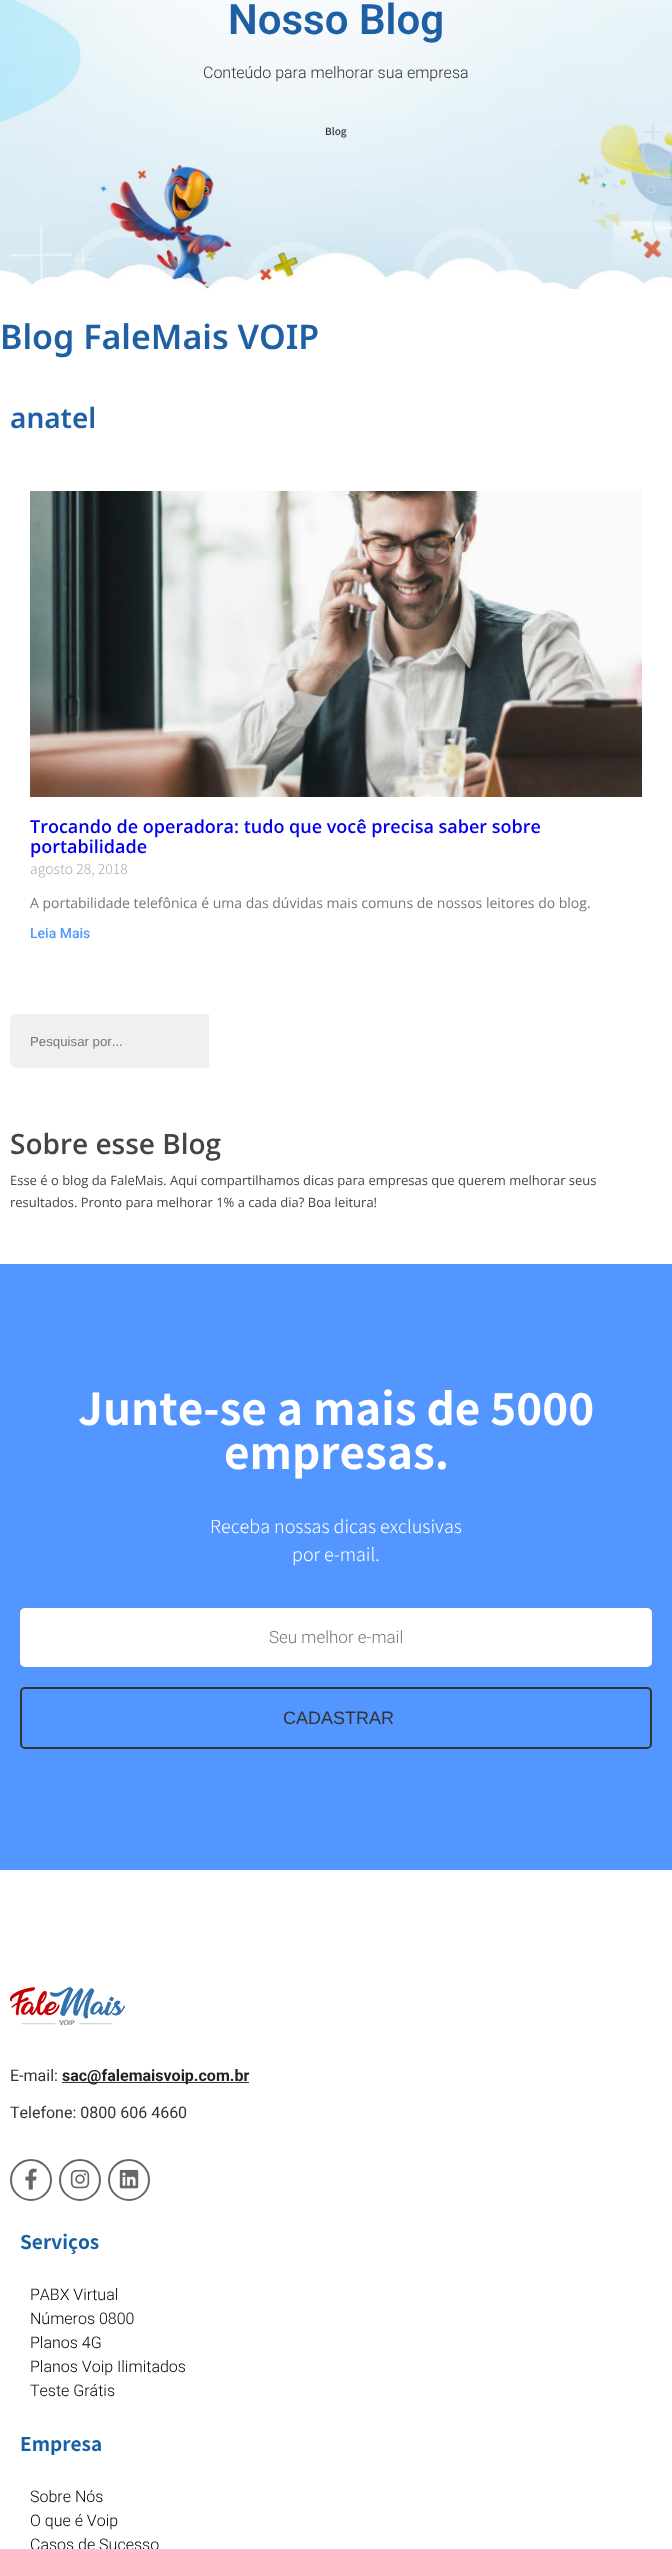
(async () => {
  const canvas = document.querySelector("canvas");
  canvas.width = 672;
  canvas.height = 2549;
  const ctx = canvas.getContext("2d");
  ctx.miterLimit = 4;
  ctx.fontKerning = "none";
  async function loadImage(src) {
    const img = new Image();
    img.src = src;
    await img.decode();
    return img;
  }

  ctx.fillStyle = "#ffffff";
  ctx.fillRect(0, 0, 672, 2549);
  ctx.drawImage(await loadImage("img/1.png"), 0, 0, 672, 289);
  ctx.drawImage(await loadImage("img/2.png"), 30, 491, 612, 306);
  ctx.fillStyle = "#f0f0f0";
  ctx.beginPath();
  ctx.roundRect(10, 1014, 199, 54, [6, 0, 0, 6]);
  ctx.fill();
  ctx.fillStyle = "#5496ff";
  ctx.fillRect(0, 1264, 672, 606);
  ctx.fillStyle = "#ffffff";
  ctx.beginPath();
  ctx.roundRect(20, 1608, 632, 59, 5);
  ctx.fill();
  ctx.beginPath();
  ctx.roundRect(21, 1688, 630, 60, 4);
  ctx.strokeStyle = "#333333";
  ctx.lineWidth = 2;
  ctx.stroke();
  ctx.drawImage(await loadImage("img/3.png"), 10, 1987, 115, 38);
  ctx.fillStyle = "#333333";
  ctx.fillRect(62, 2082, 187, 1);
  ctx.beginPath();
  ctx.arc(31, 2180, 20, 0, Math.PI * 2);
  ctx.strokeStyle = "#666666";
  ctx.stroke();
  ctx.drawImage(await loadImage("img/4.png"), 25, 2168, 12, 22);
  ctx.beginPath();
  ctx.arc(80, 2180, 20, 0, Math.PI * 2);
  ctx.stroke();
  ctx.drawImage(await loadImage("img/5.png"), 70, 2169, 20, 20);
  ctx.beginPath();
  ctx.arc(129, 2180, 20, 0, Math.PI * 2);
  ctx.stroke();
  ctx.drawImage(await loadImage("img/6.png"), 119, 2169, 20, 20);
  ctx.font = "600 42px Roboto";
  ctx.fillStyle = "#1f60a4";
  ctx.fillText("Nosso Blog", 228, 34);
  ctx.font = "300 16px Roboto";
  ctx.fillStyle = "#333333";
  ctx.fillText("Conteúdo para melhorar sua empresa", 203, 78);
  ctx.font = "500 10px Noto Sans TC";
  ctx.fillText("Blog", 325, 135);
  ctx.font = "600 34px Noto Sans";
  ctx.fillStyle = "#1f60a4";
  ctx.fillText("Blog FaleMais VOIP", 0, 349);
  ctx.font = "600 28px Noto Sans";
  ctx.fillText("anatel", 10, 428);
  ctx.font = "600 18px Open Sans";
  ctx.fillStyle = "#0000ee";
  ctx.fillText("Trocando de operadora: tudo que você precisa saber sobre", 30, 833);
  ctx.fillText("portabilidade", 30, 853);
  ctx.font = "300 14px Noto Sans TC";
  ctx.fillStyle = "#adadad";
  ctx.fillText("agosto 28, 2018", 30, 874);
  ctx.font = "14px Open Sans";
  ctx.fillStyle = "#777777";
  ctx.fillText("A portabilidade telefônica é uma das dúvidas mais comuns de nossos leitores do blog.", 30, 908);
  ctx.font = "500 14px Roboto";
  ctx.fillStyle = "#5496ff";
  ctx.fillText("Leia Mais", 30, 938);
  ctx.font = "13.25px Liberation Sans";
  ctx.fillStyle = "#777777";
  ctx.fillText("Pesquisar por...", 30, 1046);
  ctx.font = "600 28px Open Sans";
  ctx.fillStyle = "#444444";
  ctx.fillText("Sobre esse Blog", 10, 1154);
  ctx.font = "13px Open Sans";
  ctx.fillText("Esse é o blog da FaleMais. Aqui compartilhamos dicas para empresas que querem melhorar seus", 10, 1185);
  ctx.fillText("resultados. Pronto para melhorar 1% a cada dia? Boa leitura!", 10, 1207);
  ctx.font = "bold 44px Noto Sans TC";
  ctx.fillStyle = "#ffffff";
  ctx.fillText("Junte-se a mais de 5000", 78, 1425);
  ctx.fillText("empresas.", 224, 1469);
  ctx.font = "300 18px Noto Sans TC";
  ctx.fillText("Receba nossas dicas exclusivas", 210, 1533);
  ctx.fillText("por e-mail.", 292, 1561);
  ctx.font = "300 17px Roboto";
  ctx.fillStyle = "#777777";
  ctx.fillText("Seu melhor e-mail", 269, 1643);
  ctx.font = "18px Liberation Sans";
  ctx.fillStyle = "#333333";
  ctx.fillText("CADASTRAR", 283, 1724);
  ctx.font = "16px Roboto";
  ctx.fillText("E-mail:", 10, 2081);
  ctx.font = "bold 16px Roboto";
  ctx.fillStyle = "#222222";
  ctx.fillText("sac@falemaisvoip.com.br", 62, 2081);
  ctx.font = "16px Roboto";
  ctx.fillStyle = "#333333";
  ctx.fillText("Telefone: 0800 606 4660", 10, 2118);
  ctx.font = "bold 19px Noto Sans TC";
  ctx.fillStyle = "#1760a4";
  ctx.fillText("Serviços", 20, 2249);
  ctx.font = "300 16px Roboto";
  ctx.fillStyle = "#010101";
  for (const [text, x, y] of [
    ["PABX Virtual", 30, 2300],
    ["Números 0800", 30, 2324],
    ["Planos 4G", 30, 2348],
    ["Planos Voip Ilimitados", 30, 2372],
    ["Teste Grátis", 30, 2396],
  ]) {
    ctx.fillText(text, x, y);
  }
  ctx.font = "bold 19px Noto Sans TC";
  ctx.fillStyle = "#1760a4";
  ctx.fillText("Empresa", 20, 2451);
  ctx.font = "300 16px Roboto";
  ctx.fillStyle = "#010101";
  for (const [text, x, y] of [
    ["Sobre Nós", 30, 2502],
    ["O que é Voip", 30, 2526],
    ["Casos de Sucesso", 30, 2550],
  ]) {
    ctx.fillText(text, x, y);
  }
})();
